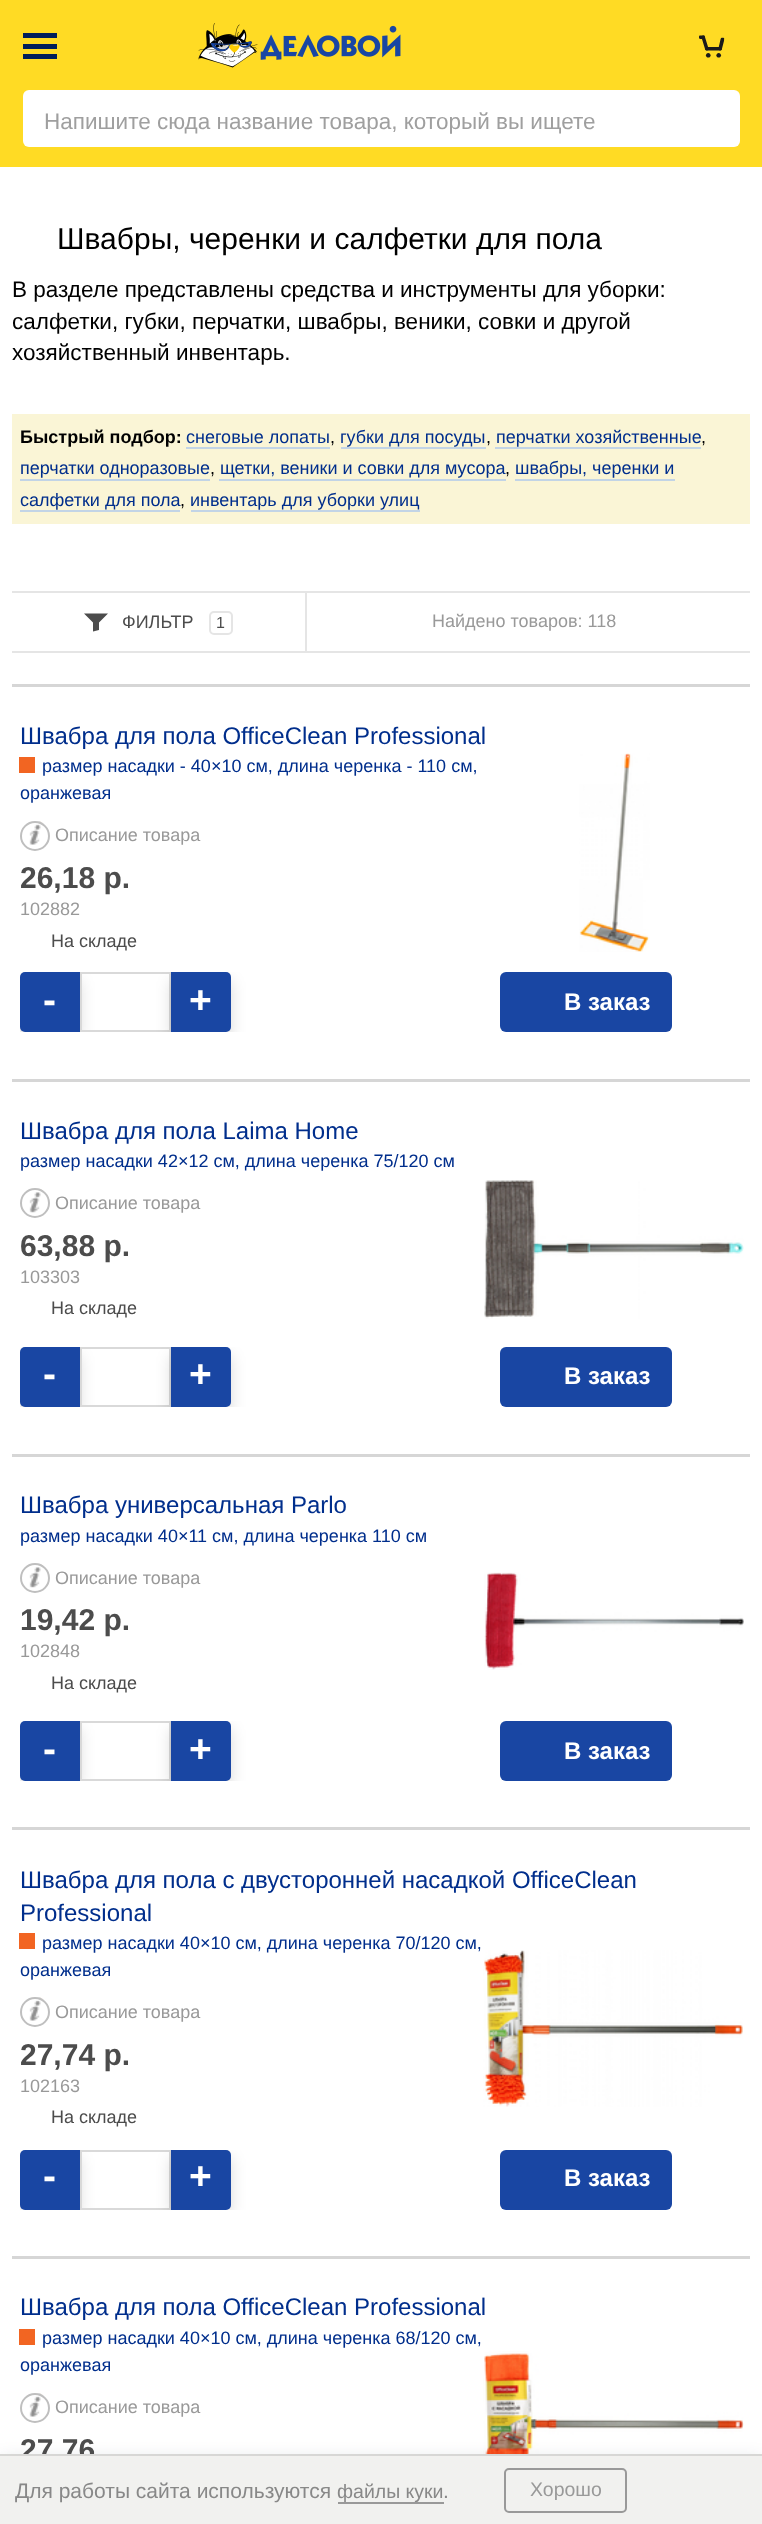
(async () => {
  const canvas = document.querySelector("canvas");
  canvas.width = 762;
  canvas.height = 2524;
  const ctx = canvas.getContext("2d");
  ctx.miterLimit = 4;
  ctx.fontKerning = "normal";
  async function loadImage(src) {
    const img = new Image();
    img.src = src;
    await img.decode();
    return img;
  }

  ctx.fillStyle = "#ffffff";
  ctx.fillRect(0, 0, 762, 2524);
  for (const [x, y, w, h, color] of [
    [0, 0, 762, 167, "#ffdb24"],
    [23, 33, 34, 5, "#001d5a"],
    [23, 44, 34, 5, "#001d5a"],
    [23, 54, 34, 5, "#001d5a"],
  ]) {
    ctx.fillStyle = color;
    ctx.fillRect(x, y, w, h);
  }
  ctx.drawImage(await loadImage("img/1.png"), 198, 23, 203, 45);
  ctx.drawImage(await loadImage("img/2.png"), 699, 35, 26, 23);
  ctx.fillStyle = "#ffffff";
  ctx.beginPath();
  ctx.roundRect(23, 90, 717, 57, 6);
  ctx.fill();
  for (const [x, y, w, h, color] of [
    [12, 414, 738, 110, "#faf5d6"],
    [186, 447, 144, 2, "#c2d4e6"],
    [341, 447, 145, 2, "#c2d4e6"],
    [495, 447, 206, 2, "#c2d4e6"],
    [20, 479, 190, 2, "#c2d4e6"],
    [219, 479, 287, 2, "#c2d4e6"],
    [515, 479, 160, 2, "#c2d4e6"],
    [20, 510, 160, 2, "#c2d4e6"],
    [191, 510, 229, 2, "#c2d4e6"],
    [12, 591, 738, 2, "#e5e5e5"],
    [12, 651, 738, 2, "#e5e5e5"],
  ]) {
    ctx.fillStyle = color;
    ctx.fillRect(x, y, w, h);
  }
  ctx.drawImage(await loadImage("img/3.png"), 84, 613, 24, 19);
  ctx.beginPath();
  ctx.roundRect(210, 612, 22, 22, 4);
  ctx.strokeStyle = "#e5e5e5";
  ctx.lineWidth = 2;
  ctx.stroke();
  for (const [x, y, w, h, color] of [
    [305, 593, 2, 58, "#e5e5e5"],
    [12, 684, 738, 3, "#d6d6d6"],
    [19, 757, 16, 16, "#f26522"],
  ]) {
    ctx.fillStyle = color;
    ctx.fillRect(x, y, w, h);
  }
  ctx.drawImage(await loadImage("img/4.png"), 29, 821, 16, 24);
  ctx.beginPath();
  ctx.arc(35, 836, 14, 0, Math.PI * 2);
  ctx.strokeStyle = "#bfbfbf";
  ctx.stroke();
  ctx.drawImage(await loadImage("img/5.png"), 579, 753, 71, 199);
  ctx.save();
  ctx.beginPath();
  ctx.rect(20, 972, 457, 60);
  ctx.clip();
  ctx.fillStyle = "rgba(0, 0, 0, 0.15)";
  ctx.filter = "blur(7.5px)";
  ctx.beginPath();
  ctx.roundRect(20, 980, 60, 60, 5);
  ctx.fill();
  ctx.filter = "none";
  ctx.restore();
  ctx.fillStyle = "#1946a3";
  ctx.beginPath();
  ctx.roundRect(20, 972, 60, 60, [5, 0, 0, 5]);
  ctx.fill();
  ctx.strokeStyle = "#d9d9d9";
  ctx.strokeRect(81, 973, 89, 58);
  ctx.save();
  ctx.beginPath();
  ctx.rect(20, 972, 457, 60);
  ctx.clip();
  ctx.fillStyle = "rgba(0, 0, 0, 0.15)";
  ctx.filter = "blur(7.5px)";
  ctx.beginPath();
  ctx.roundRect(171, 980, 60, 60, 5);
  ctx.fill();
  ctx.filter = "none";
  ctx.restore();
  ctx.beginPath();
  ctx.roundRect(171, 972, 60, 60, [0, 5, 5, 0]);
  ctx.fill();
  ctx.beginPath();
  ctx.roundRect(500, 972, 172, 60, 6);
  ctx.fill();
  ctx.fillStyle = "#d6d6d6";
  ctx.fillRect(12, 1079, 738, 3);
  ctx.drawImage(await loadImage("img/6.png"), 29, 1188, 14, 25);
  ctx.beginPath();
  ctx.arc(35, 1203, 14, 0, Math.PI * 2);
  ctx.strokeStyle = "#bfbfbf";
  ctx.stroke();
  ctx.drawImage(await loadImage("img/7.png"), 484, 1180, 260, 139);
  ctx.save();
  ctx.beginPath();
  ctx.rect(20, 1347, 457, 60);
  ctx.clip();
  ctx.fillStyle = "rgba(0, 0, 0, 0.15)";
  ctx.filter = "blur(7.5px)";
  ctx.beginPath();
  ctx.roundRect(20, 1355, 60, 60, 5);
  ctx.fill();
  ctx.filter = "none";
  ctx.restore();
  ctx.fillStyle = "#1946a3";
  ctx.beginPath();
  ctx.roundRect(20, 1347, 60, 60, [5, 0, 0, 5]);
  ctx.fill();
  ctx.strokeStyle = "#d9d9d9";
  ctx.strokeRect(81, 1348, 89, 58);
  ctx.save();
  ctx.beginPath();
  ctx.rect(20, 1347, 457, 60);
  ctx.clip();
  ctx.fillStyle = "rgba(0, 0, 0, 0.15)";
  ctx.filter = "blur(7.5px)";
  ctx.beginPath();
  ctx.roundRect(171, 1355, 60, 60, 5);
  ctx.fill();
  ctx.filter = "none";
  ctx.restore();
  ctx.beginPath();
  ctx.roundRect(171, 1347, 60, 60, [0, 5, 5, 0]);
  ctx.fill();
  ctx.beginPath();
  ctx.roundRect(500, 1347, 172, 60, 6);
  ctx.fill();
  ctx.fillStyle = "#d6d6d6";
  ctx.fillRect(12, 1454, 738, 3);
  ctx.drawImage(await loadImage("img/6.png"), 29, 1563, 14, 25);
  ctx.beginPath();
  ctx.arc(35, 1578, 14, 0, Math.PI * 2);
  ctx.strokeStyle = "#bfbfbf";
  ctx.stroke();
  ctx.drawImage(await loadImage("img/8.png"), 484, 1572, 260, 98);
  ctx.save();
  ctx.beginPath();
  ctx.rect(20, 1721, 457, 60);
  ctx.clip();
  ctx.fillStyle = "rgba(0, 0, 0, 0.15)";
  ctx.filter = "blur(7.5px)";
  ctx.beginPath();
  ctx.roundRect(20, 1728, 60, 60, 5);
  ctx.fill();
  ctx.filter = "none";
  ctx.restore();
  ctx.fillStyle = "#1946a3";
  ctx.beginPath();
  ctx.roundRect(20, 1721, 60, 60, [5, 0, 0, 5]);
  ctx.fill();
  ctx.strokeStyle = "#d9d9d9";
  ctx.strokeRect(81, 1722, 89, 58);
  ctx.save();
  ctx.beginPath();
  ctx.rect(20, 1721, 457, 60);
  ctx.clip();
  ctx.fillStyle = "rgba(0, 0, 0, 0.15)";
  ctx.filter = "blur(7.5px)";
  ctx.beginPath();
  ctx.roundRect(171, 1728, 60, 60, 5);
  ctx.fill();
  ctx.filter = "none";
  ctx.restore();
  ctx.beginPath();
  ctx.roundRect(171, 1721, 60, 60, [0, 5, 5, 0]);
  ctx.fill();
  ctx.beginPath();
  ctx.roundRect(500, 1721, 172, 60, 6);
  ctx.fill();
  ctx.fillStyle = "#d6d6d6";
  ctx.fillRect(12, 1827, 738, 3);
  ctx.fillStyle = "#f26522";
  ctx.fillRect(19, 1933, 16, 16);
  ctx.drawImage(await loadImage("img/4.png"), 29, 1997, 16, 24);
  ctx.beginPath();
  ctx.arc(35, 2012, 14, 0, Math.PI * 2);
  ctx.strokeStyle = "#bfbfbf";
  ctx.stroke();
  ctx.drawImage(await loadImage("img/9.png"), 483, 1950, 260, 157);
  ctx.save();
  ctx.beginPath();
  ctx.rect(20, 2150, 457, 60);
  ctx.clip();
  ctx.fillStyle = "rgba(0, 0, 0, 0.15)";
  ctx.filter = "blur(7.5px)";
  ctx.beginPath();
  ctx.roundRect(20, 2157, 60, 60, 5);
  ctx.fill();
  ctx.filter = "none";
  ctx.restore();
  ctx.fillStyle = "#1946a3";
  ctx.beginPath();
  ctx.roundRect(20, 2150, 60, 60, [5, 0, 0, 5]);
  ctx.fill();
  ctx.strokeStyle = "#d9d9d9";
  ctx.strokeRect(81, 2151, 89, 58);
  ctx.save();
  ctx.beginPath();
  ctx.rect(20, 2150, 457, 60);
  ctx.clip();
  ctx.fillStyle = "rgba(0, 0, 0, 0.15)";
  ctx.filter = "blur(7.5px)";
  ctx.beginPath();
  ctx.roundRect(171, 2157, 60, 60, 5);
  ctx.fill();
  ctx.filter = "none";
  ctx.restore();
  ctx.beginPath();
  ctx.roundRect(171, 2150, 60, 60, [0, 5, 5, 0]);
  ctx.fill();
  ctx.beginPath();
  ctx.roundRect(500, 2150, 172, 60, 6);
  ctx.fill();
  ctx.fillStyle = "#d6d6d6";
  ctx.fillRect(12, 2256, 738, 3);
  ctx.fillStyle = "#f26522";
  ctx.fillRect(19, 2329, 16, 16);
  ctx.drawImage(await loadImage("img/4.png"), 29, 2393, 16, 24);
  ctx.beginPath();
  ctx.arc(35, 2408, 14, 0, Math.PI * 2);
  ctx.strokeStyle = "#bfbfbf";
  ctx.stroke();
  ctx.drawImage(await loadImage("img/10.png"), 483, 2351, 261, 103);
  ctx.fillStyle = "rgba(1, 26, 51, 0.16)";
  ctx.filter = "blur(9px)";
  ctx.beginPath();
  ctx.rect(0, 2460, 762, 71);
  ctx.fill();
  ctx.filter = "none";
  ctx.font = "22.5px Liberation Sans";
  ctx.fillStyle = "#9f9f9f";
  ctx.fillText("Напишите сюда название товара, который вы ищете", 44, 129);
  ctx.font = "30px Liberation Sans";
  ctx.fillStyle = "#000000";
  ctx.fillText("Швабры, черенки и салфетки для пола", 57, 249);
  ctx.font = "22.5px Liberation Sans";
  for (const [text, x, y] of [
    ["В разделе представлены средства и инструменты для уборки:", 12, 297],
    ["салфетки, губки, перчатки, швабры, веники, совки и другой", 12, 329],
    ["хозяйственный инвентарь.", 12, 360],
  ]) {
    ctx.fillText(text, x, y);
  }
  ctx.font = "bold 18px Liberation Sans";
  ctx.fillText("Быстрый подбор:", 20, 443);
  ctx.font = "18px Liberation Sans";
  ctx.fillStyle = "#002e8c";
  ctx.fillText("снеговые лопаты", 186, 443);
  ctx.fillStyle = "#000000";
  ctx.fillText(",", 330, 443);
  ctx.fillStyle = "#002e8c";
  ctx.fillText("губки для посуды", 340, 443);
  ctx.fillStyle = "#000000";
  ctx.fillText(",", 486, 443);
  ctx.fillStyle = "#002e8c";
  ctx.fillText("перчатки хозяйственные", 496, 443);
  ctx.fillStyle = "#000000";
  ctx.fillText(",", 701, 443);
  ctx.fillStyle = "#002e8c";
  ctx.fillText("перчатки одноразовые", 20, 474);
  ctx.fillStyle = "#000000";
  ctx.fillText(",", 210, 474);
  ctx.fillStyle = "#002e8c";
  ctx.fillText("щетки, веники и совки для мусора", 220, 474);
  ctx.fillStyle = "#000000";
  ctx.fillText(",", 505, 474);
  ctx.fillStyle = "#002e8c";
  ctx.fillText("швабры, черенки и", 515, 474);
  ctx.fillText("салфетки для пола", 20, 506);
  ctx.fillStyle = "#000000";
  ctx.fillText(",", 180, 506);
  ctx.fillStyle = "#002e8c";
  ctx.fillText("инвентарь для уборки улиц", 190, 506);
  ctx.fillStyle = "#4c4c4c";
  ctx.fillText("ФИЛЬТР", 122, 628);
  ctx.font = "16px Liberation Sans";
  ctx.fillText("1", 216, 628);
  ctx.font = "18px Liberation Sans";
  ctx.fillStyle = "#999999";
  ctx.fillText("Найдено товаров: 118", 432, 627);
  ctx.font = "24px Liberation Sans";
  ctx.fillStyle = "#002e8c";
  ctx.fillText("Швабра для пола OfficeClean Professional", 20, 744);
  ctx.font = "18px Liberation Sans";
  ctx.fillText("размер насадки - 40×10 см, длина черенка - 110 см,", 42, 772);
  ctx.fillText("оранжевая", 20, 799);
  ctx.fillStyle = "#999999";
  ctx.fillText("Описание товара", 55, 841);
  ctx.font = "bold 30px Liberation Sans";
  ctx.fillStyle = "#4c4c4c";
  ctx.fillText("26,18 р.", 20, 888);
  ctx.font = "18px Liberation Sans";
  ctx.fillStyle = "#999999";
  ctx.fillText("102882", 20, 915);
  ctx.fillStyle = "#4c4c4c";
  ctx.fillText("На складе", 51, 947);
  ctx.font = "bold 39px Liberation Sans";
  ctx.fillStyle = "#ffffff";
  ctx.fillText("-", 43, 1013);
  ctx.fillText("+", 189, 1013);
  ctx.font = "bold 24px Liberation Sans";
  ctx.fillText("В заказ", 564, 1010);
  ctx.font = "24px Liberation Sans";
  ctx.fillStyle = "#002e8c";
  ctx.fillText("Швабра для пола Laima Home", 20, 1139);
  ctx.font = "18px Liberation Sans";
  ctx.fillText("размер насадки 42×12 см, длина черенка 75/120 см", 20, 1167);
  ctx.fillStyle = "#999999";
  ctx.fillText("Описание товара", 55, 1209);
  ctx.font = "bold 30px Liberation Sans";
  ctx.fillStyle = "#4c4c4c";
  ctx.fillText("63,88 р.", 20, 1256);
  ctx.font = "18px Liberation Sans";
  ctx.fillStyle = "#999999";
  ctx.fillText("103303", 20, 1283);
  ctx.fillStyle = "#4c4c4c";
  ctx.fillText("На складе", 51, 1314);
  ctx.font = "bold 39px Liberation Sans";
  ctx.fillStyle = "#ffffff";
  ctx.fillText("-", 43, 1387);
  ctx.fillText("+", 189, 1387);
  ctx.font = "bold 24px Liberation Sans";
  ctx.fillText("В заказ", 564, 1384);
  ctx.font = "24px Liberation Sans";
  ctx.fillStyle = "#002e8c";
  ctx.fillText("Швабра универсальная Parlo", 20, 1513);
  ctx.font = "18px Liberation Sans";
  ctx.fillText("размер насадки 40×11 см, длина черенка 110 см", 20, 1542);
  ctx.fillStyle = "#999999";
  ctx.fillText("Описание товара", 55, 1584);
  ctx.font = "bold 30px Liberation Sans";
  ctx.fillStyle = "#4c4c4c";
  ctx.fillText("19,42 р.", 20, 1630);
  ctx.font = "18px Liberation Sans";
  ctx.fillStyle = "#999999";
  ctx.fillText("102848", 20, 1657);
  ctx.fillStyle = "#4c4c4c";
  ctx.fillText("На складе", 51, 1689);
  ctx.font = "bold 39px Liberation Sans";
  ctx.fillStyle = "#ffffff";
  ctx.fillText("-", 43, 1762);
  ctx.fillText("+", 189, 1762);
  ctx.font = "bold 24px Liberation Sans";
  ctx.fillText("В заказ", 564, 1759);
  ctx.font = "24px Liberation Sans";
  ctx.fillStyle = "#002e8c";
  ctx.fillText("Швабра для пола с двусторонней насадкой OfficeClean", 20, 1888);
  ctx.fillText("Professional", 20, 1921);
  ctx.font = "18px Liberation Sans";
  ctx.fillText("размер насадки 40×10 см, длина черенка 70/120 см,", 42, 1949);
  ctx.fillText("оранжевая", 20, 1976);
  ctx.fillStyle = "#999999";
  ctx.fillText("Описание товара", 55, 2018);
  ctx.font = "bold 30px Liberation Sans";
  ctx.fillStyle = "#4c4c4c";
  ctx.fillText("27,74 р.", 20, 2065);
  ctx.font = "18px Liberation Sans";
  ctx.fillStyle = "#999999";
  ctx.fillText("102163", 20, 2092);
  ctx.fillStyle = "#4c4c4c";
  ctx.fillText("На складе", 51, 2123);
  ctx.font = "bold 39px Liberation Sans";
  ctx.fillStyle = "#ffffff";
  ctx.fillText("-", 43, 2189);
  ctx.fillText("+", 189, 2189);
  ctx.font = "bold 24px Liberation Sans";
  ctx.fillText("В заказ", 564, 2186);
  ctx.font = "24px Liberation Sans";
  ctx.fillStyle = "#002e8c";
  ctx.fillText("Швабра для пола OfficeClean Professional", 20, 2315);
  ctx.font = "18px Liberation Sans";
  ctx.fillText("размер насадки 40×10 см, длина черенка 68/120 см,", 42, 2344);
  ctx.fillText("оранжевая", 20, 2371);
  ctx.fillStyle = "#999999";
  ctx.fillText("Описание товара", 55, 2413);
  ctx.font = "bold 30px Liberation Sans";
  ctx.fillStyle = "#4c4c4c";
  ctx.fillText("27,76", 20, 2460);
  ctx.fillStyle = "#f1f1ef";
  ctx.fillRect(0, 2456, 762, 68);
  ctx.fillStyle = "#d7d7d5";
  ctx.fillRect(0, 2454, 762, 2);
  ctx.font = "21px Liberation Sans";
  ctx.fillStyle = "#888888";
  ctx.fillText("Для работы сайта используются", 15, 2498);
  ctx.fillStyle = "#999999";
  ctx.fillRect(338, 2502, 106, 2);
  ctx.font = "19.5px Liberation Sans";
  ctx.fillStyle = "#888888";
  ctx.fillText("файлы куки", 337, 2498);
  ctx.font = "21px Liberation Sans";
  ctx.fillText(".", 443, 2498);
  ctx.beginPath();
  ctx.roundRect(505, 2469, 121, 43, 4);
  ctx.strokeStyle = "#999999";
  ctx.stroke();
  ctx.font = "19.5px Liberation Sans";
  ctx.fillStyle = "#999999";
  ctx.fillText("Хорошо", 530, 2496);
})();
